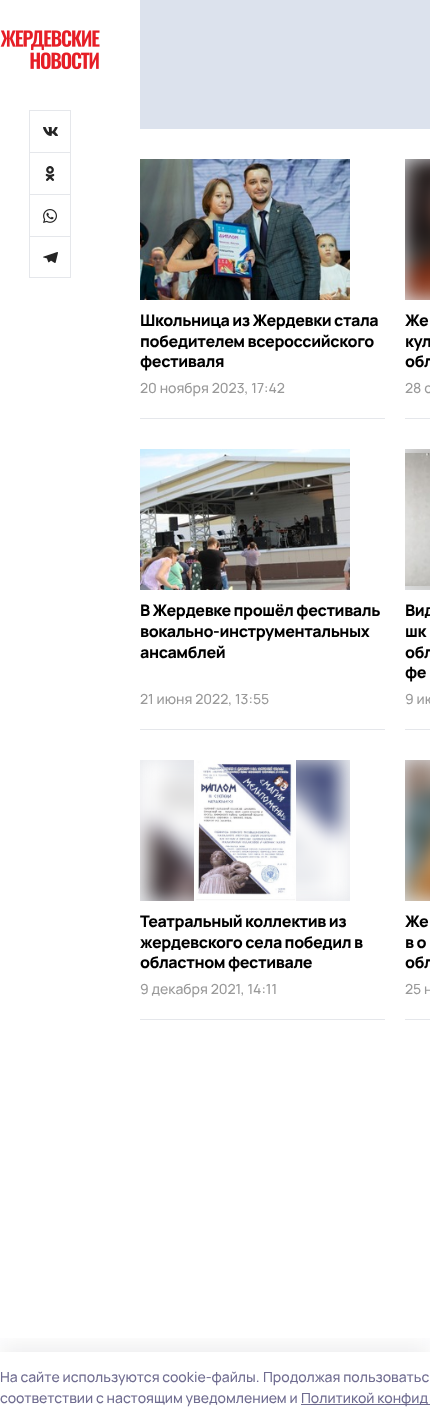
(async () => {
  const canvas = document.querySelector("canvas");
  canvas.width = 430;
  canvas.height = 1422;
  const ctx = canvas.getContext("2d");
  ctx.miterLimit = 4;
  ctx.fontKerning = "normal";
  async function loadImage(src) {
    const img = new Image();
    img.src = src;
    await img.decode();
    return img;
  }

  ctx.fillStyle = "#ffffff";
  ctx.fillRect(0, 0, 430, 1422);
  ctx.drawImage(await loadImage("img/1.png"), 0, 30, 100, 40);
  ctx.drawImage(await loadImage("img/2.png"), 43, 127, 15, 9);
  for (const [x, y, w, h, color] of [
    [29, 110, 42, 1, "#e5e7eb"],
    [70, 110, 1, 42, "#e5e7eb"],
    [29, 110, 1, 42, "#e5e7eb"],
  ]) {
    ctx.fillStyle = color;
    ctx.fillRect(x, y, w, h);
  }
  ctx.drawImage(await loadImage("img/3.png"), 45, 166, 10, 15);
  for (const [x, y, w, h, color] of [
    [29, 152, 42, 1, "#e5e7eb"],
    [70, 152, 1, 42, "#e5e7eb"],
    [29, 152, 1, 42, "#e5e7eb"],
  ]) {
    ctx.fillStyle = color;
    ctx.fillRect(x, y, w, h);
  }
  ctx.drawImage(await loadImage("img/4.png"), 43, 209, 14, 14);
  for (const [x, y, w, h, color] of [
    [29, 194, 42, 1, "#e5e7eb"],
    [70, 194, 1, 42, "#e5e7eb"],
    [29, 194, 1, 42, "#e5e7eb"],
  ]) {
    ctx.fillStyle = color;
    ctx.fillRect(x, y, w, h);
  }
  ctx.drawImage(await loadImage("img/5.png"), 43, 252, 15, 11);
  ctx.strokeStyle = "#e5e7eb";
  ctx.strokeRect(29.5, 236.5, 41, 41);
  ctx.fillStyle = "#dce2ed";
  ctx.fillRect(140, 0, 290, 129);
  ctx.fillStyle = "#e5e7eb";
  ctx.fillRect(140, 418, 245, 1);
  ctx.drawImage(await loadImage("img/6.png"), 140, 159, 210, 141);
  ctx.fillRect(405, 418, 25, 1);
  ctx.fillRect(405, 159, 25, 141);
  ctx.drawImage(await loadImage("img/7.png"), 405, 159, 25, 141);
  ctx.fillRect(140, 729, 245, 1);
  ctx.drawImage(await loadImage("img/8.png"), 140, 449, 210, 141);
  ctx.fillRect(405, 729, 25, 1);
  ctx.fillRect(405, 449, 25, 141);
  ctx.drawImage(await loadImage("img/9.png"), 405, 449, 25, 141);
  ctx.drawImage(await loadImage("img/10.png"), 405, 453, 25, 133);
  ctx.fillRect(140, 1019, 245, 1);
  ctx.fillRect(140, 760, 210, 141);
  ctx.drawImage(await loadImage("img/11.png"), 140, 760, 210, 141);
  ctx.drawImage(await loadImage("img/12.png"), 194, 760, 102, 141);
  ctx.fillRect(405, 1019, 25, 1);
  ctx.fillRect(405, 760, 25, 141);
  ctx.drawImage(await loadImage("img/13.png"), 405, 760, 25, 141);
  ctx.save();
  ctx.beginPath();
  ctx.rect(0, 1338, 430, 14);
  ctx.clip();
  ctx.fillStyle = "rgba(20, 20, 43, 0.08)";
  ctx.filter = "blur(11.5px)";
  ctx.beginPath();
  ctx.rect(0, 1346, 430, 70);
  ctx.fill();
  ctx.filter = "none";
  ctx.restore();
  ctx.fillStyle = "#6f6c90";
  ctx.fillRect(301, 1404, 129, 1);
  ctx.letterSpacing = "-0.4px";
  ctx.font = "800 16px Manrope";
  ctx.fillStyle = "#000000";
  for (const [text, x, y] of [
    ["Школьница из Жердевки стала", 140, 326],
    ["победителем всероссийского", 140, 347],
    ["фестиваля", 140, 367],
  ]) {
    ctx.fillText(text, x, y);
  }
  ctx.letterSpacing = "0px";
  ctx.font = "500 14px Manrope";
  ctx.fillStyle = "#999999";
  ctx.fillText("20 ноября 2023, 17:42", 140, 393);
  ctx.letterSpacing = "-0.4px";
  ctx.font = "800 16px Manrope";
  ctx.fillStyle = "#000000";
  for (const [text, x, y] of [
    ["Же", 405, 326],
    ["кул", 405, 347],
    ["обл", 405, 367],
  ]) {
    ctx.fillText(text, x, y);
  }
  ctx.letterSpacing = "0px";
  ctx.font = "500 14px Manrope";
  ctx.fillStyle = "#999999";
  ctx.fillText("28 о", 405, 393);
  ctx.letterSpacing = "-0.4px";
  ctx.font = "800 16px Manrope";
  ctx.fillStyle = "#000000";
  for (const [text, x, y] of [
    ["В Жердевке прошёл фестиваль", 140, 616],
    ["вокально-инструментальных", 140, 637],
    ["ансамблей", 140, 658],
  ]) {
    ctx.fillText(text, x, y);
  }
  ctx.letterSpacing = "0px";
  ctx.font = "500 14px Manrope";
  ctx.fillStyle = "#999999";
  ctx.fillText("21 июня 2022, 13:55", 140, 704);
  ctx.letterSpacing = "-0.4px";
  ctx.font = "800 16px Manrope";
  ctx.fillStyle = "#000000";
  for (const [text, x, y] of [
    ["Вид", 405, 616],
    ["шк", 405, 637],
    ["обл", 405, 658],
    ["фе", 405, 678],
  ]) {
    ctx.fillText(text, x, y);
  }
  ctx.letterSpacing = "0px";
  ctx.font = "500 14px Manrope";
  ctx.fillStyle = "#999999";
  ctx.fillText("9 ию", 405, 704);
  ctx.letterSpacing = "-0.4px";
  ctx.font = "800 16px Manrope";
  ctx.fillStyle = "#000000";
  for (const [text, x, y] of [
    ["Театральный коллектив из", 140, 927],
    ["жердевского села победил в", 140, 948],
    ["областном фестивале", 140, 968],
  ]) {
    ctx.fillText(text, x, y);
  }
  ctx.letterSpacing = "0px";
  ctx.font = "500 14px Manrope";
  ctx.fillStyle = "#999999";
  ctx.fillText("9 декабря 2021, 14:11", 140, 994);
  ctx.letterSpacing = "-0.4px";
  ctx.font = "800 16px Manrope";
  ctx.fillStyle = "#000000";
  for (const [text, x, y] of [
    ["Же", 405, 927],
    ["в о", 405, 948],
    ["обл", 405, 968],
  ]) {
    ctx.fillText(text, x, y);
  }
  ctx.letterSpacing = "0px";
  ctx.font = "500 14px Manrope";
  ctx.fillStyle = "#999999";
  ctx.fillText("25 н", 405, 994);
  ctx.fillStyle = "#6f6c90";
  for (const [text, x, y] of [
    ["На сайте используются cookie-файлы.", 0, 1382],
    ["Продолжая пользоватьс", 263, 1382],
    ["соответствии с настоящим уведомлением и", 0, 1403],
    ["Политикой конфид", 301, 1403],
  ]) {
    ctx.fillText(text, x, y);
  }
})();
